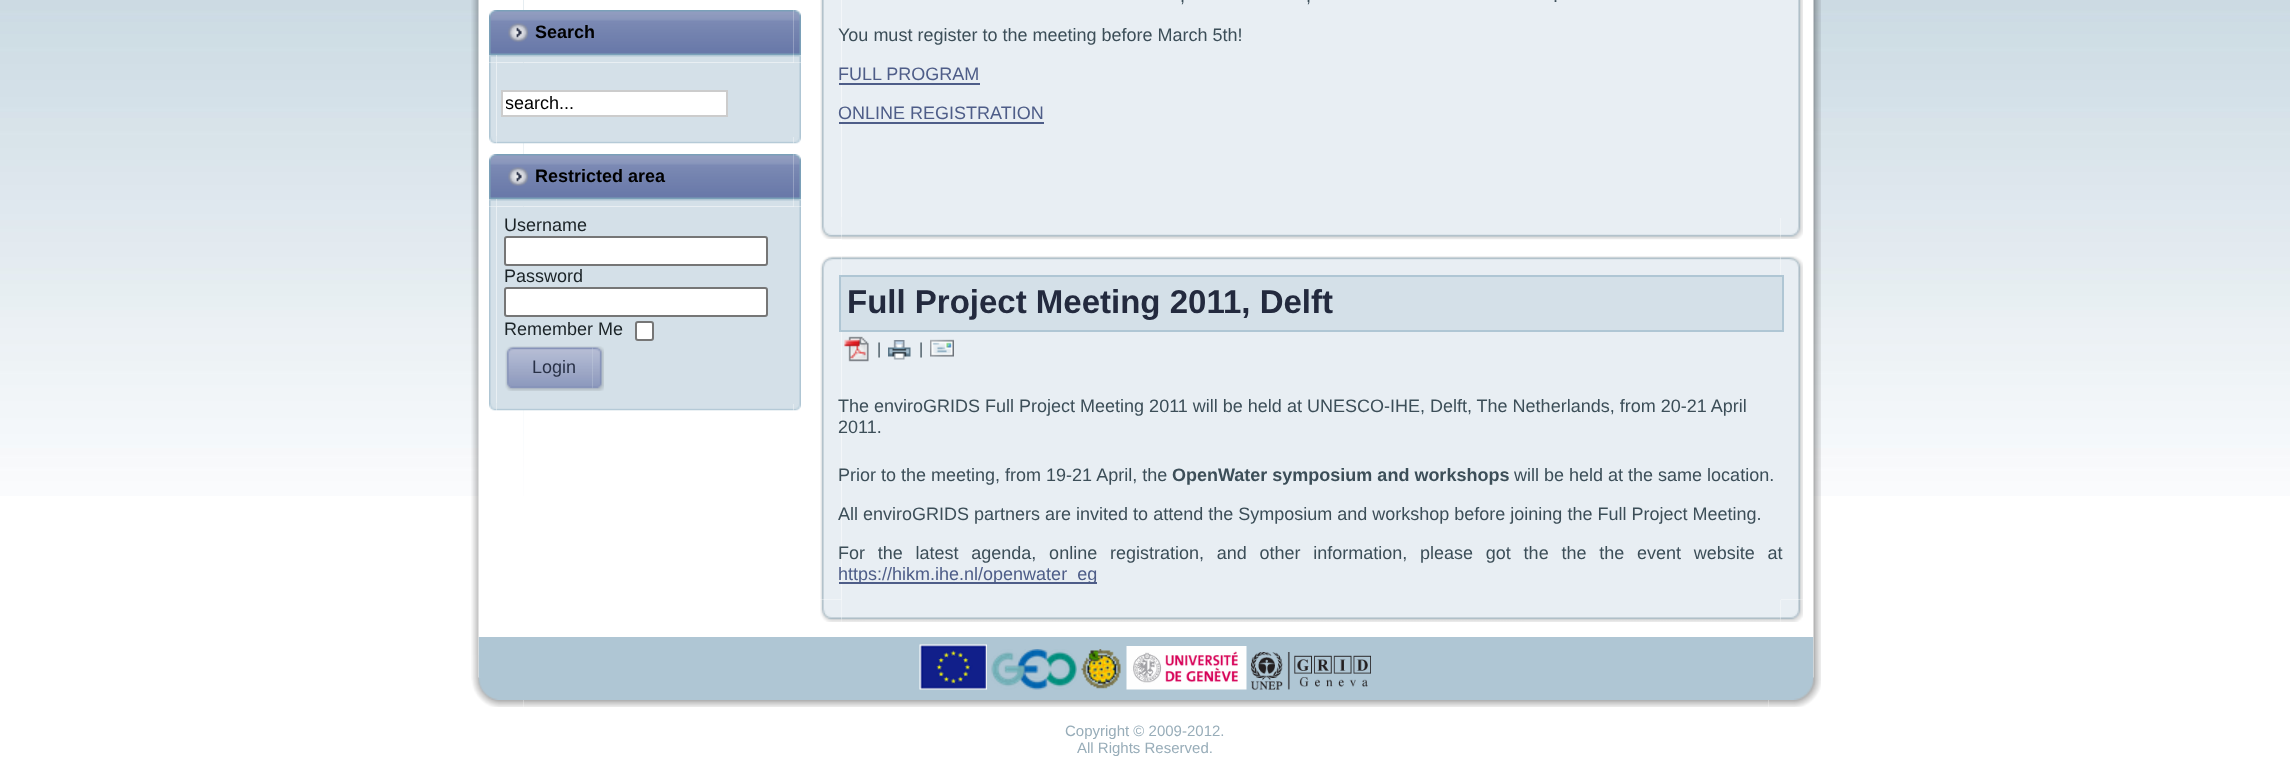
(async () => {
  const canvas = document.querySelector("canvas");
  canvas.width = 2290;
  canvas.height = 771;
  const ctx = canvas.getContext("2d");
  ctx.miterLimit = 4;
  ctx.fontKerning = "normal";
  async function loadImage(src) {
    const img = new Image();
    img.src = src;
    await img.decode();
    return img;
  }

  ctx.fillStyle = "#ffffff";
  ctx.fillRect(0, 0, 2290, 771);
  ctx.drawImage(await loadImage("img/1.png"), 0, 0, 2290, 496);
  ctx.drawImage(await loadImage("img/2.png"), 471, 0, 53, 655);
  ctx.fillRect(524, 0, 1245, 496);
  ctx.drawImage(await loadImage("img/3.png"), 489, 10, 305, 45);
  ctx.drawImage(await loadImage("img/4.png"), 793, 10, 8, 45);
  ctx.drawImage(await loadImage("img/5.png"), 508, 23, 20, 19);
  ctx.drawImage(await loadImage("img/6.png"), 489, 55, 8, 8);
  ctx.drawImage(await loadImage("img/8.png"), 793, 55, 8, 8);
  ctx.drawImage(await loadImage("img/7.png"), 496, 55, 298, 8);
  ctx.drawImage(await loadImage("img/9.png"), 489, 62, 8, 74);
  ctx.drawImage(await loadImage("img/10.png"), 793, 62, 8, 74);
  ctx.drawImage(await loadImage("img/11.png"), 489, 136, 8, 8);
  ctx.drawImage(await loadImage("img/13.png"), 793, 136, 8, 8);
  ctx.drawImage(await loadImage("img/12.png"), 496, 136, 298, 8);
  ctx.fillStyle = "#d4e0e8";
  ctx.fillRect(497, 63, 297, 74);
  ctx.fillStyle = "#ffffff";
  ctx.beginPath();
  ctx.rect(502, 91, 225, 25);
  ctx.fill();
  ctx.strokeStyle = "#cccccc";
  ctx.lineWidth = 2;
  ctx.stroke();
  ctx.drawImage(await loadImage("img/3.png"), 489, 154, 305, 45);
  ctx.drawImage(await loadImage("img/4.png"), 793, 154, 8, 45);
  ctx.drawImage(await loadImage("img/5.png"), 508, 167, 20, 19);
  ctx.drawImage(await loadImage("img/6.png"), 489, 199, 8, 8);
  ctx.drawImage(await loadImage("img/8.png"), 793, 199, 8, 8);
  ctx.drawImage(await loadImage("img/14.png"), 496, 199, 298, 8);
  ctx.drawImage(await loadImage("img/15.png"), 489, 206, 8, 197);
  ctx.drawImage(await loadImage("img/16.png"), 793, 206, 8, 197);
  ctx.drawImage(await loadImage("img/11.png"), 489, 403, 8, 8);
  ctx.drawImage(await loadImage("img/13.png"), 793, 403, 8, 8);
  ctx.drawImage(await loadImage("img/19.png"), 496, 403, 298, 8);
  ctx.fillStyle = "#d4e0e8";
  ctx.fillRect(497, 207, 297, 197);
  ctx.fillStyle = "#ffffff";
  ctx.beginPath();
  ctx.roundRect(505, 237, 262, 28, 2);
  ctx.fill();
  ctx.strokeStyle = "#767676";
  ctx.stroke();
  ctx.beginPath();
  ctx.roundRect(505, 288, 262, 28, 2);
  ctx.fill();
  ctx.stroke();
  ctx.beginPath();
  ctx.roundRect(636, 322, 17, 18, 2);
  ctx.fill();
  ctx.stroke();
  ctx.drawImage(await loadImage("img/17.png"), 505, 346, 88, 45);
  ctx.drawImage(await loadImage("img/18.png"), 592, 346, 12, 45);
  ctx.drawImage(await loadImage("img/20.png"), 820, 0, 22, 217);
  ctx.drawImage(await loadImage("img/22.png"), 820, 217, 22, 22);
  ctx.drawImage(await loadImage("img/42.png"), 1769, 0, 52, 655);
  ctx.drawImage(await loadImage("img/24.png"), 1780, 217, 23, 22);
  ctx.drawImage(await loadImage("img/23.png"), 841, 217, 940, 23);
  for (const [x, y, w, h, color] of [
    [842, 0, 939, 218, "#e8eef3"],
    [839, 83, 141, 2, "#4e5d88"],
    [839, 122, 205, 2, "#4e5d88"],
  ]) {
    ctx.fillStyle = color;
    ctx.fillRect(x, y, w, h);
  }
  ctx.drawImage(await loadImage("img/21.png"), 1781, 0, 22, 217);
  ctx.drawImage(await loadImage("img/25.png"), 820, 256, 22, 21);
  ctx.drawImage(await loadImage("img/27.png"), 1780, 256, 23, 21);
  ctx.drawImage(await loadImage("img/26.png"), 841, 256, 940, 19);
  ctx.drawImage(await loadImage("img/33.png"), 820, 599, 22, 23);
  ctx.drawImage(await loadImage("img/35.png"), 1780, 599, 23, 23);
  ctx.drawImage(await loadImage("img/34.png"), 841, 599, 940, 23);
  ctx.drawImage(await loadImage("img/28.png"), 820, 277, 22, 323);
  ctx.drawImage(await loadImage("img/32.png"), 1781, 277, 22, 323);
  ctx.fillStyle = "#d4e0e8";
  ctx.beginPath();
  ctx.rect(840, 276, 943, 55);
  ctx.fill();
  ctx.strokeStyle = "#afc6d4";
  ctx.stroke();
  ctx.fillStyle = "#e8eef3";
  ctx.fillRect(842, 332, 939, 268);
  ctx.drawImage(await loadImage("img/29.png"), 844, 336, 25, 26);
  ctx.drawImage(await loadImage("img/30.png"), 888, 340, 23, 20);
  ctx.drawImage(await loadImage("img/31.png"), 930, 339, 24, 18);
  ctx.fillStyle = "#4e5d88";
  ctx.fillRect(839, 582, 258, 2);
  ctx.drawImage(await loadImage("img/43.png"), 471, 655, 53, 52);
  ctx.drawImage(await loadImage("img/45.png"), 1768, 655, 53, 52);
  ctx.drawImage(await loadImage("img/36.png"), 478, 637, 1336, 63);
  ctx.drawImage(await loadImage("img/37.png"), 919, 644, 68, 46);
  ctx.drawImage(await loadImage("img/38.png"), 991, 649, 86, 41);
  ctx.drawImage(await loadImage("img/39.png"), 1081, 649, 40, 40);
  ctx.drawImage(await loadImage("img/40.png"), 1126, 646, 121, 44);
  ctx.drawImage(await loadImage("img/41.png"), 1251, 652, 120, 38);
  ctx.drawImage(await loadImage("img/44.png"), 523, 700, 1246, 7);
  ctx.font = "bold 18px Liberation Sans";
  ctx.fillStyle = "#000000";
  ctx.fillText("Search", 535, 38);
  ctx.save();
  ctx.beginPath();
  ctx.rect(506, 93, 217, 21);
  ctx.clip();
  ctx.font = "18px Liberation Sans";
  ctx.fillText("search...", 505, 109);
  ctx.restore();
  ctx.fillText("Restricted area", 535, 182);
  ctx.font = "18px Liberation Sans";
  ctx.fillStyle = "#1b2327";
  for (const [text, x, y] of [
    ["Username", 504, 231],
    ["Password", 504, 282],
    ["Remember Me", 504, 335],
  ]) {
    ctx.fillText(text, x, y);
  }
  ctx.fillStyle = "#293147";
  ctx.fillText("Login", 532, 373);
  ctx.fillStyle = "#3c4e58";
  for (const [text, x, y] of [
    [",", 1180, 2],
    [",", 1306, 2],
    [".", 1553, 2],
    ["You must register to the meeting before March 5th!", 838, 41],
  ]) {
    ctx.fillText(text, x, y);
  }
  ctx.fillStyle = "#4e5d88";
  ctx.fillText("FULL PROGRAM", 838, 80);
  ctx.fillText("ONLINE REGISTRATION", 838, 119);
  ctx.font = "bold 33px Liberation Sans";
  ctx.fillStyle = "#232a3e";
  ctx.fillText("Full Project Meeting 2011, Delft", 847, 313);
  ctx.font = "16px Liberation Sans";
  ctx.fillStyle = "#3c4e58";
  ctx.fillText("|", 877, 354);
  ctx.fillText("|", 919, 354);
  ctx.font = "18px Liberation Sans";
  for (const [text, x, y] of [
    ["The enviroGRIDS Full Project Meeting 2011 will be held at UNESCO-IHE, Delft, The Netherlands, from 20-21 April", 838, 412],
    ["2011.", 838, 433],
    ["Prior to the meeting, from 19-21 April, the", 838, 481],
  ]) {
    ctx.fillText(text, x, y);
  }
  ctx.font = "bold 18px Liberation Sans";
  ctx.fillText("OpenWater symposium and workshops", 1172, 481);
  ctx.font = "18px Liberation Sans";
  ctx.fillText("will be held at the same location.", 1514, 481);
  ctx.fillText("All enviroGRIDS partners are invited to attend the Symposium and workshop before joining the Full Project Meeting.", 838, 520);
  ctx.wordSpacing = "7.75px";
  ctx.fillText("For the latest agenda, online registration, and other information, please got the the the event website at", 838, 559);
  ctx.wordSpacing = "0px";
  ctx.fillStyle = "#4e5d88";
  ctx.fillText("https://hikm.ihe.nl/openwater_eg", 838, 580);
  ctx.font = "15px Liberation Sans";
  ctx.fillStyle = "#98adb9";
  ctx.fillText("Copyright © 2009-2012.", 1065, 736);
  ctx.fillText("All Rights Reserved.", 1077, 753);
})();
